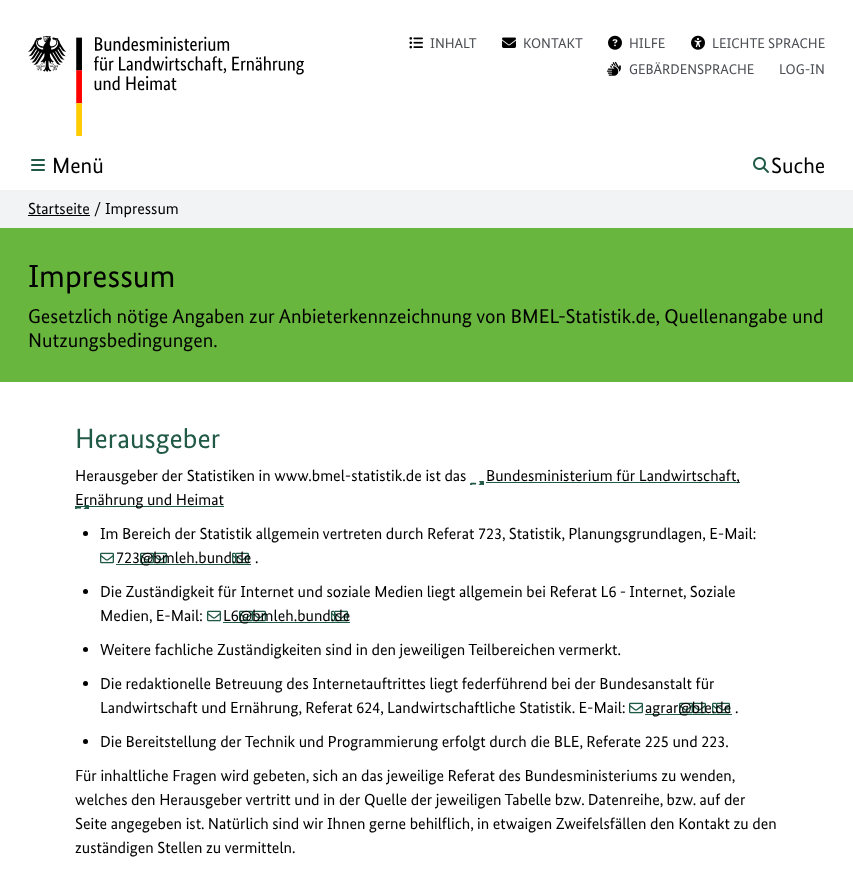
(async () => {
  const canvas = document.querySelector("canvas");
  canvas.width = 853;
  canvas.height = 873;
  const ctx = canvas.getContext("2d");
  ctx.miterLimit = 4;
  ctx.fontKerning = "normal";
  async function loadImage(src) {
    const img = new Image();
    img.src = src;
    await img.decode();
    return img;
  }

  ctx.fillStyle = "#ffffff";
  ctx.fillRect(0, 0, 853, 873);
  ctx.drawImage(await loadImage("img/1.png"), 28, 36, 276, 100);
  ctx.drawImage(await loadImage("img/2.png"), 409, 37, 14, 12);
  ctx.drawImage(await loadImage("img/3.png"), 502, 37, 14, 11);
  ctx.drawImage(await loadImage("img/4.png"), 608, 35, 14, 15);
  ctx.drawImage(await loadImage("img/5.png"), 691, 35, 14, 15);
  ctx.drawImage(await loadImage("img/6.png"), 606, 61, 15, 15);
  ctx.drawImage(await loadImage("img/7.png"), 31, 159, 14, 12);
  ctx.drawImage(await loadImage("img/8.png"), 753, 157, 16, 16);
  for (const [x, y, w, h, color] of [
    [0, 190, 853, 38, "#f2f3f4"],
    [28, 215, 62, 1, "#000000"],
    [0, 228, 853, 154, "#69b63f"],
    [486, 482, 254, 1, "#215947"],
  ]) {
    ctx.fillStyle = color;
    ctx.fillRect(x, y, w, h);
  }
  ctx.fillStyle = "#000000";
  ctx.beginPath();
  ctx.arc(85.5, 533.5, 2.5, 0, Math.PI * 2);
  ctx.fill();
  ctx.fillStyle = "#215947";
  ctx.fillRect(116, 564, 135, 1);
  ctx.drawImage(await loadImage("img/10.png"), 100, 552, 149, 12);
  ctx.fillStyle = "#000000";
  ctx.beginPath();
  ctx.arc(85.5, 591.5, 2.5, 0, Math.PI * 2);
  ctx.fill();
  ctx.fillStyle = "#215947";
  ctx.fillRect(223, 622, 127, 1);
  ctx.drawImage(await loadImage("img/11.png"), 207, 610, 141, 12);
  ctx.fillStyle = "#000000";
  ctx.beginPath();
  ctx.arc(85.5, 649.5, 2.5, 0, Math.PI * 2);
  ctx.fill();
  ctx.beginPath();
  ctx.arc(85.5, 683.5, 2.5, 0, Math.PI * 2);
  ctx.fill();
  ctx.fillStyle = "#215947";
  ctx.fillRect(645, 714, 87, 1);
  ctx.drawImage(await loadImage("img/12.png"), 629, 702, 101, 12);
  ctx.fillStyle = "#000000";
  ctx.beginPath();
  ctx.arc(85.5, 741.5, 2.5, 0, Math.PI * 2);
  ctx.fill();
  ctx.font = "14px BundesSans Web";
  ctx.fillStyle = "#4c4f54";
  for (const [text, x, y] of [
    ["INHALT", 430, 48],
    ["KONTAKT", 523, 48],
    ["HILFE", 629, 48],
    ["LEICHTE SPRACHE", 712, 48],
    ["GEBÄRDENSPRACHE", 629, 74],
    ["LOG-IN", 779, 74],
  ]) {
    ctx.fillText(text, x, y);
  }
  ctx.font = "22px BundesSans Web";
  ctx.fillStyle = "#000000";
  ctx.fillText("Menü", 52, 173);
  ctx.fillText("Suche", 771, 173);
  ctx.font = "16px BundesSans Web";
  for (const [text, x, y] of [
    ["Startseite", 28, 214],
    ["/", 94, 214],
    ["Impressum", 105, 214],
  ]) {
    ctx.fillText(text, x, y);
  }
  ctx.font = "32px BundesSans Web";
  ctx.fillText("Impressum", 28, 287);
  ctx.font = "20px BundesSans Web";
  ctx.fillText("Gesetzlich nötige Angaben zur Anbieterkennzeichnung von BMEL-Statistik.de, Quellenangabe und", 28, 323);
  ctx.fillText("Nutzungsbedingungen.", 28, 347);
  ctx.font = "28px BundesSans Web";
  ctx.fillStyle = "#215947";
  ctx.fillText("Herausgeber", 75, 448);
  ctx.font = "16px BundesSans Web";
  ctx.fillStyle = "#000000";
  ctx.fillText("Herausgeber der Statistiken in www.bmel-statistik.de ist das", 75, 481);
  ctx.fillText("Bundesministerium für Landwirtschaft,", 486, 481);
  ctx.drawImage(await loadImage("img/9.png"), 75, 481, 409, 28);
  ctx.fillStyle = "#215947";
  ctx.fillRect(75, 506, 149, 1);
  ctx.fillStyle = "#000000";
  for (const [text, x, y] of [
    ["Ernährung und Heimat", 75, 505],
    ["Im Bereich der Statistik allgemein vertreten durch Referat 723, Statistik, Planungsgrundlagen, E-Mail:", 100, 539],
    ["723@bmleh.bund.de", 116, 563],
    [".", 255, 563],
    ["Die Zuständigkeit für Internet und soziale Medien liegt allgemein bei Referat L6 - Internet, Soziale", 100, 597],
    ["Medien, E-Mail:", 100, 621],
    ["L6@bmleh.bund.de", 223, 621],
    ["Weitere fachliche Zuständigkeiten sind in den jeweiligen Teilbereichen vermerkt.", 100, 655],
    ["Die redaktionelle Betreuung des Internetauftrittes liegt federführend bei der Bundesanstalt für", 100, 689],
    ["Landwirtschaft und Ernährung, Referat 624, Landwirtschaftliche Statistik. E-Mail:", 100, 713],
    ["agrar@ble.de", 645, 713],
    [".", 735, 713],
    ["Die Bereitstellung der Technik und Programmierung erfolgt durch die BLE, Referate 225 und 223.", 100, 747],
    ["Für inhaltliche Fragen wird gebeten, sich an das jeweilige Referat des Bundesministeriums zu wenden,", 75, 781],
    ["welches den Herausgeber vertritt und in der Quelle der jeweiligen Tabelle bzw. Datenreihe, bzw. auf der", 75, 805],
    ["Seite angegeben ist. Natürlich sind wir Ihnen gerne behilflich, in etwaigen Zweifelsfällen den Kontakt zu den", 75, 829],
    ["zuständigen Stellen zu vermitteln.", 75, 853],
  ]) {
    ctx.fillText(text, x, y);
  }
})();
